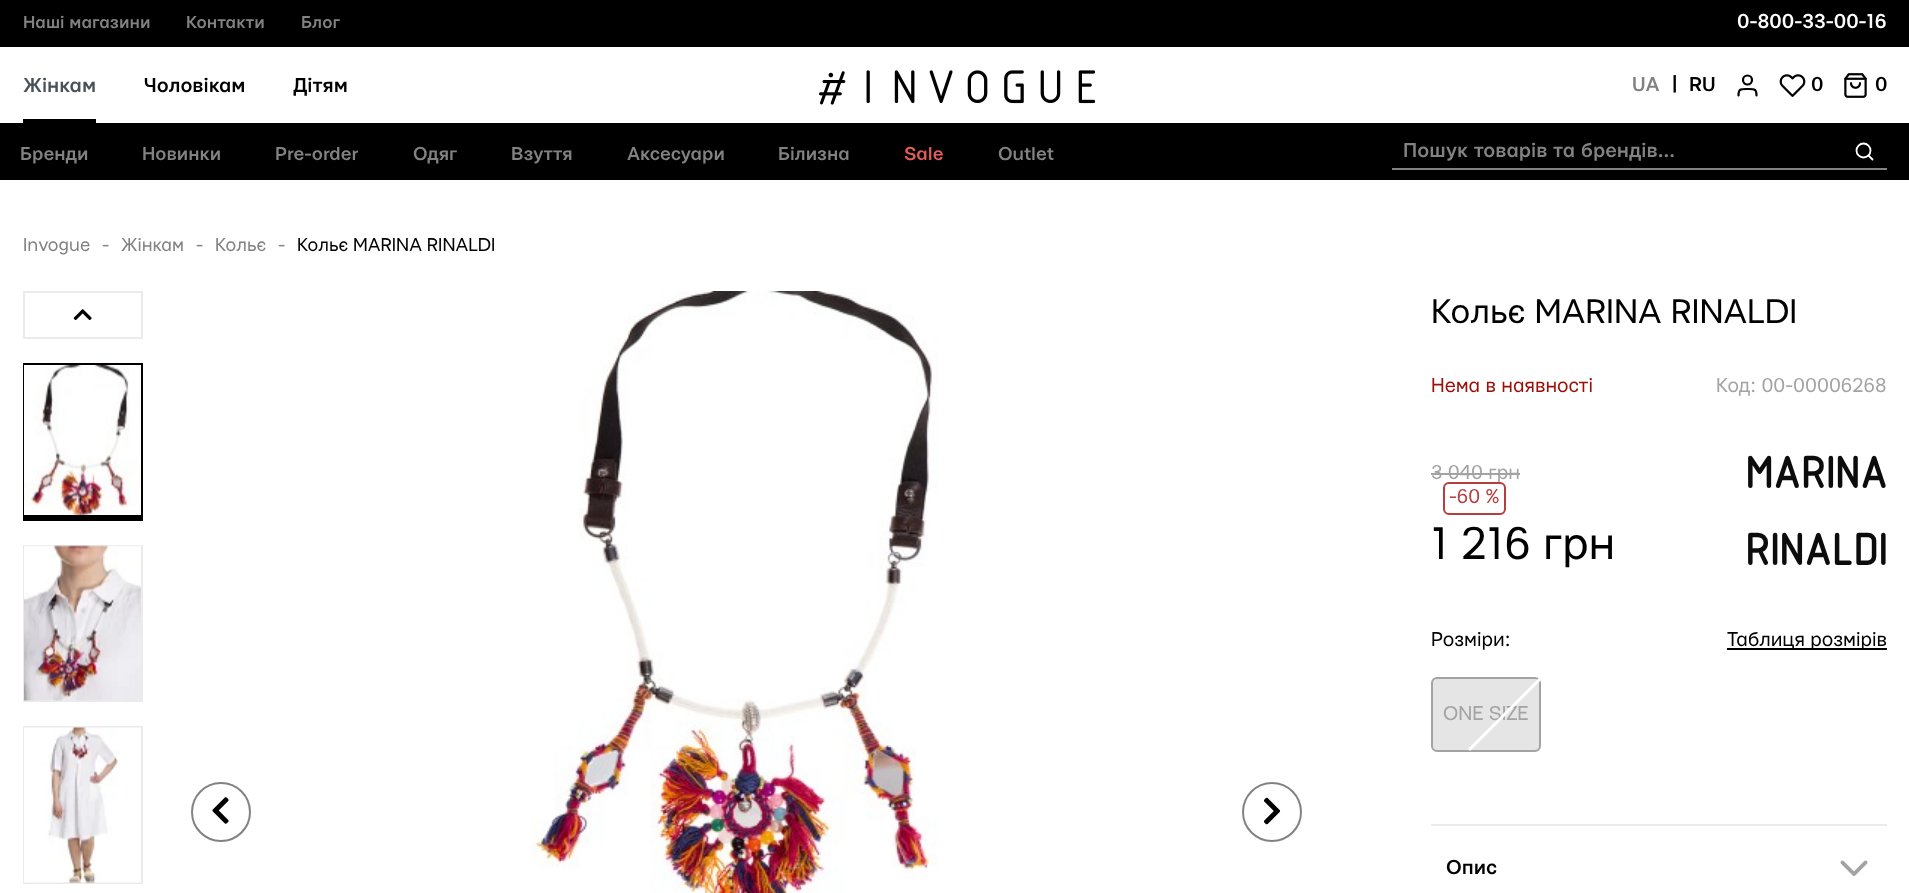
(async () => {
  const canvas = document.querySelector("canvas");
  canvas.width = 1909;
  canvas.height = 893;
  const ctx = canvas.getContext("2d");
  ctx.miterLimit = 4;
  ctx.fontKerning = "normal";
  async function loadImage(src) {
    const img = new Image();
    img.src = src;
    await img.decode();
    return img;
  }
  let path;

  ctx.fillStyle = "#ffffff";
  ctx.fillRect(0, 0, 1909, 893);
  ctx.fillStyle = "#000000";
  ctx.fillRect(0, 0, 1909, 47);
  ctx.fillRect(23, 119, 73, 4);
  ctx.drawImage(await loadImage("img/1.png"), 819, 70, 277, 35);
  ctx.beginPath();
  ctx.arc(1747.5, 80, 4.5, 0, Math.PI * 2);
  ctx.strokeStyle = "#000000";
  ctx.lineWidth = 2.2;
  ctx.stroke();
  path = new Path2D("M1756.5 95.5C1756.5 88.5 1754 89 1747.5 89C1741 89 1738.5 88.5 1738.5 95.5");
  ctx.lineCap = "round";
  ctx.lineJoin = "round";
  ctx.stroke(path);
  ctx.drawImage(await loadImage("img/2.png"), 1779, 74, 27, 23);
  ctx.drawImage(await loadImage("img/3.png"), 1844, 73, 23, 25);
  ctx.fillRect(0, 123, 1909, 57);
  ctx.fillStyle = "#828282";
  ctx.fillRect(1392, 168, 495, 2);
  ctx.beginPath();
  ctx.arc(1863.5, 150.5, 7, 0, Math.PI * 2);
  ctx.strokeStyle = "#ffffff";
  ctx.lineWidth = 1.8;
  ctx.stroke();
  path = new Path2D("M1872.5 159.5L1868.5 155.5");
  ctx.stroke(path);
  ctx.strokeStyle = "#ebebeb";
  ctx.lineWidth = 2;
  ctx.lineJoin = "miter";
  ctx.strokeRect(24, 292, 118, 46);
  ctx.drawImage(await loadImage("img/4.png"), 73, 309, 19, 11);
  ctx.strokeStyle = "#000000";
  ctx.strokeRect(24, 364, 118, 156);
  ctx.drawImage(await loadImage("img/5.png"), 24, 365, 117, 150);
  ctx.fillStyle = "#000000";
  ctx.fillRect(24, 515, 117, 4);
  ctx.strokeStyle = "#ebebeb";
  ctx.strokeRect(24, 546, 118, 155);
  ctx.drawImage(await loadImage("img/6.png"), 24, 545, 117, 156);
  ctx.strokeRect(24, 727, 118, 156);
  ctx.drawImage(await loadImage("img/7.png"), 24, 727, 117, 156);
  ctx.beginPath();
  ctx.arc(221, 812, 29, 0, Math.PI * 2);
  ctx.strokeStyle = "#828282";
  ctx.stroke();
  ctx.drawImage(await loadImage("img/8.png"), 212, 797, 17, 27);
  ctx.drawImage(await loadImage("img/9.png"), 531, 291, 408, 602);
  ctx.beginPath();
  ctx.arc(1272, 812, 29, 0, Math.PI * 2);
  ctx.stroke();
  ctx.drawImage(await loadImage("img/10.png"), 1263, 797, 18, 28);
  ctx.fillStyle = "#a3a3a3";
  ctx.fillRect(1431, 473, 89, 2);
  ctx.fillStyle = "#000000";
  ctx.fillRect(1727, 648, 160, 2);
  ctx.fillStyle = "#e5e5e5";
  ctx.beginPath();
  ctx.roundRect(1432, 678, 108, 73, 5);
  ctx.fill();
  ctx.strokeStyle = "#a3a3a3";
  ctx.stroke();
  ctx.fillStyle = "#ebebeb";
  ctx.fillRect(1431, 824, 456, 2);
  ctx.drawImage(await loadImage("img/11.png"), 1840, 860, 28, 16);
  ctx.font = "500 18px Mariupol";
  ctx.fillStyle = "#828282";
  for (const [text, x, y] of [
    ["Наші магазини", 23, 28],
    ["Контакти", 186, 28],
    ["Блог", 301, 28],
  ]) {
    ctx.fillText(text, x, y);
  }
  ctx.font = "500 21px Mariupol";
  ctx.fillStyle = "#ffffff";
  ctx.fillText("0-800-33-00-16", 1737, 28);
  ctx.fillStyle = "#495057";
  ctx.fillText("Жінкам", 23, 92);
  ctx.fillStyle = "#000000";
  ctx.fillText("Чоловікам", 144, 92);
  ctx.fillText("Дітям", 293, 92);
  ctx.fillStyle = "#828282";
  ctx.fillText("UA", 1632, 91);
  ctx.fillStyle = "#000000";
  for (const [text, x, y] of [
    ["|", 1672, 91],
    ["RU", 1689, 91],
    ["0", 1811, 91],
    ["0", 1875, 91],
  ]) {
    ctx.fillText(text, x, y);
  }
  ctx.font = "500 19.5px Mariupol";
  ctx.fillStyle = "#828282";
  for (const [text, x, y] of [
    ["Бренди", 20, 160],
    ["Новинки", 142, 160],
    ["Pre-order", 275, 160],
    ["Одяг", 413, 160],
    ["Взуття", 511, 160],
    ["Аксесуари", 627, 160],
    ["Білизна", 778, 160],
  ]) {
    ctx.fillText(text, x, y);
  }
  ctx.fillStyle = "#e45b5b";
  ctx.fillText("Sale", 904, 160);
  ctx.fillStyle = "#828282";
  ctx.fillText("Outlet", 998, 160);
  ctx.font = "500 21px Mariupol";
  ctx.fillText("Пошук товарів та брендів...", 1403, 157);
  ctx.font = "19.5px Mariupol";
  for (const [text, x, y] of [
    ["Invogue", 23, 251],
    ["-", 102, 251],
    ["Жінкам", 121, 251],
    ["-", 196, 251],
    ["Кольє", 215, 251],
    ["-", 278, 251],
  ]) {
    ctx.fillText(text, x, y);
  }
  ctx.fillStyle = "#000000";
  ctx.fillText("Кольє MARINA RINALDI", 297, 251);
  ctx.font = "36px Mariupol";
  ctx.fillText("Кольє MARINA RINALDI", 1431, 323);
  ctx.font = "21px Mariupol";
  ctx.fillStyle = "#9a1008";
  ctx.fillText("Нема в наявності", 1431, 392);
  ctx.fillStyle = "#a3a3a3";
  ctx.fillText("Код: 00-00006268", 1716, 392);
  ctx.fillText("3 040 грн", 1431, 479);
  ctx.beginPath();
  ctx.roundRect(1444, 483, 61, 31, 5);
  ctx.strokeStyle = "#b83d3d";
  ctx.stroke();
  ctx.fillStyle = "#b83d3d";
  ctx.fillText("-60 %", 1449, 503);
  ctx.font = "48px Mariupol";
  ctx.fillStyle = "#000000";
  ctx.fillText("1 216 грн", 1431, 559);
  ctx.font = "bold 48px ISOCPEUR";
  ctx.fillStyle = "#0c0c0c";
  ctx.fillText("MARINA", 1745, 488);
  ctx.fillText("RINALDI", 1745, 565);
  ctx.font = "21px Mariupol";
  ctx.fillStyle = "#000000";
  ctx.fillText("Розміри:", 1431, 646);
  ctx.fillText("Таблиця розмірів", 1727, 646);
  ctx.fillStyle = "#a3a3a3";
  ctx.fillText("ONE SIZE", 1443, 720);
  ctx.fillStyle = "#ffffff";
  path = new Path2D("M1541 680L1470 751L1468 749L1539 678Z");
  ctx.fill(path);
  ctx.font = "500 21px Mariupol";
  ctx.fillStyle = "#000000";
  ctx.fillText("Опис", 1446, 874);
})();
